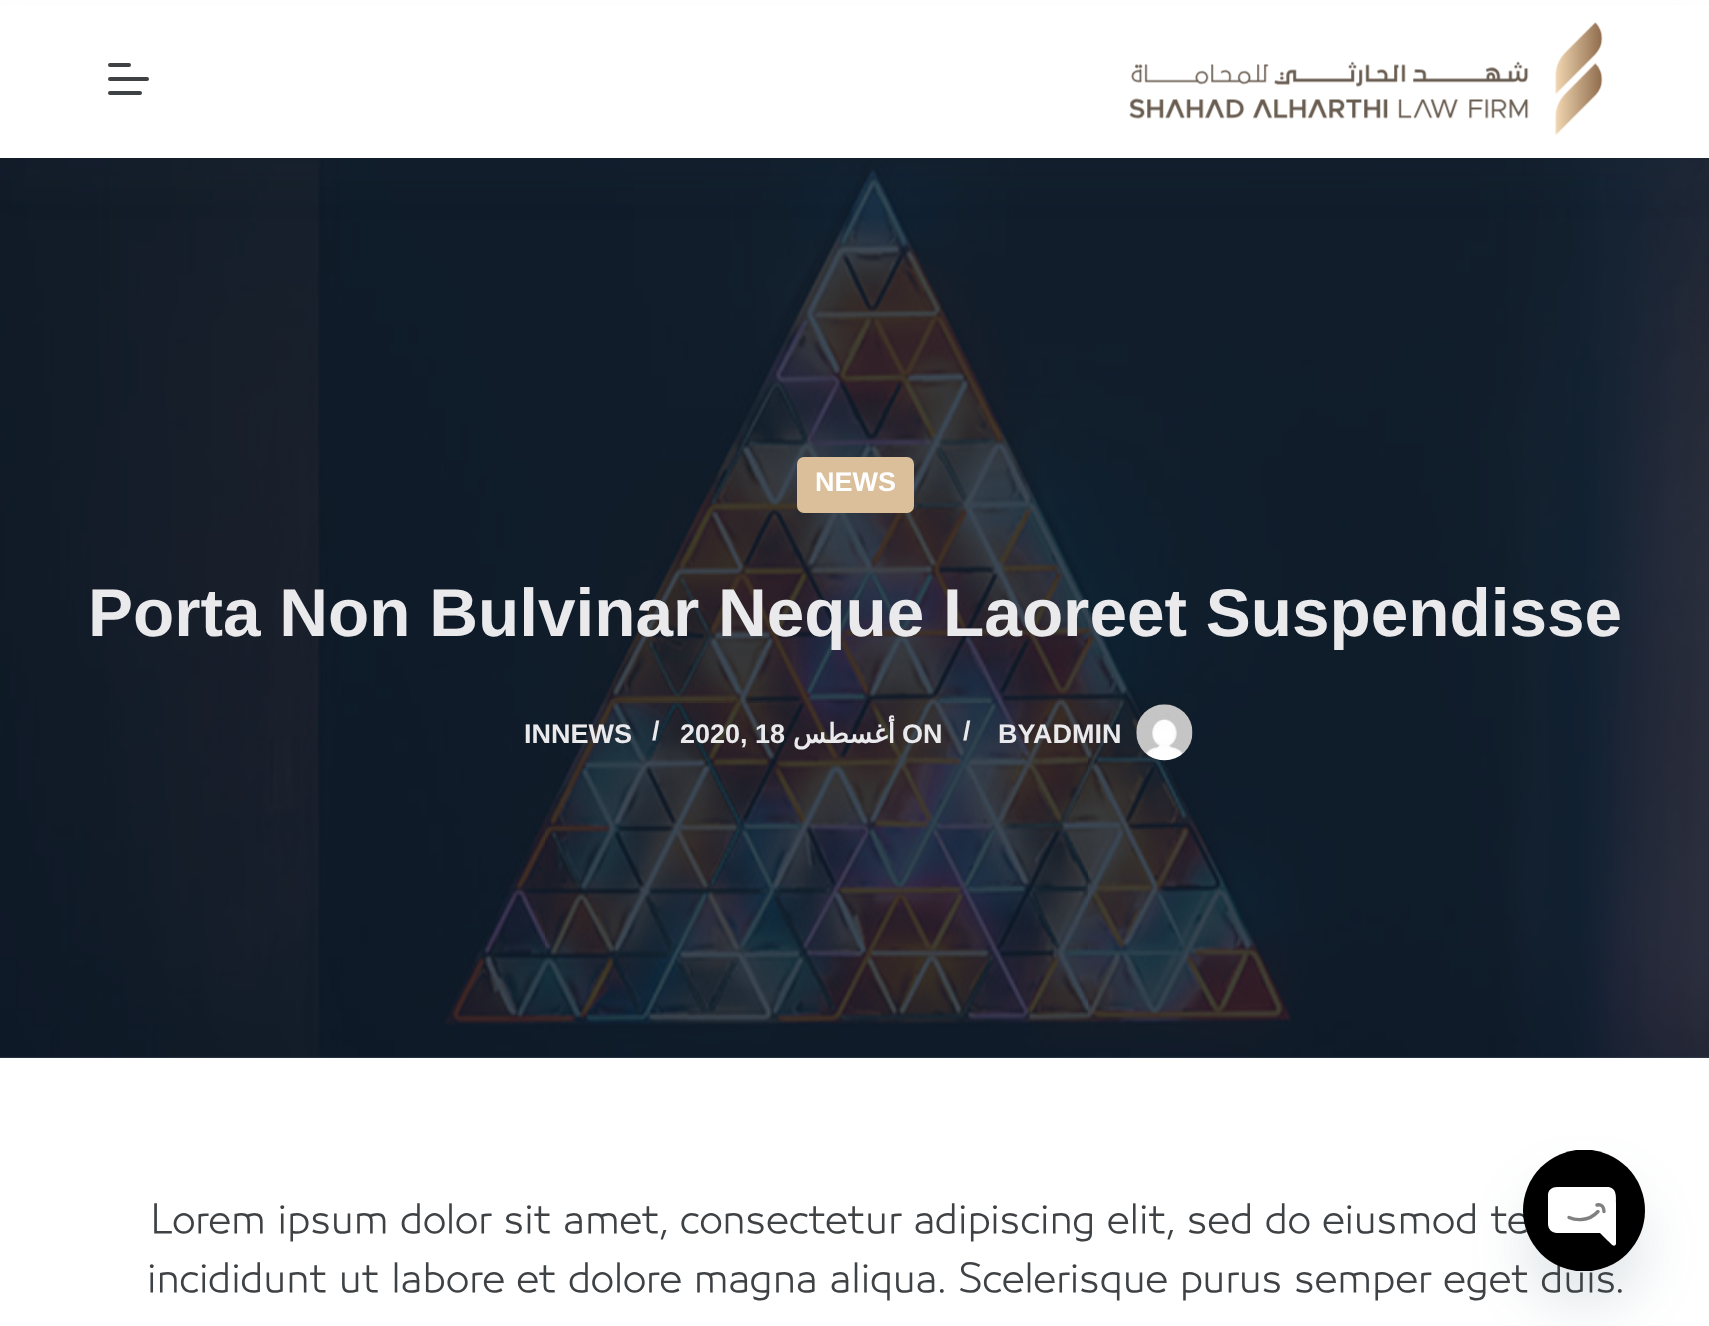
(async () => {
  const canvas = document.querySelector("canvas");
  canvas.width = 1709;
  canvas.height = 1326;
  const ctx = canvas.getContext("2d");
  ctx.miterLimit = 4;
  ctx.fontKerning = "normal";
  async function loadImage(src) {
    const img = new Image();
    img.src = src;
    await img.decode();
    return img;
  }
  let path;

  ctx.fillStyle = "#ffffff";
  ctx.fillRect(0, 0, 1709, 1326);
  ctx.fillStyle = "#3e4956";
  ctx.fillRect(0, 1056, 1709, 2);
  ctx.drawImage(await loadImage("img/2.png"), 0, 158, 1709, 900);
  ctx.fillStyle = "rgba(43, 61, 80, 0.06)";
  ctx.filter = "blur(22.5px)";
  ctx.beginPath();
  ctx.rect(0, 23, 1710, 157);
  ctx.fill();
  ctx.filter = "none";
  ctx.fillStyle = "#ffffff";
  ctx.fillRect(0, 5, 1709, 153);
  ctx.fillStyle = "#3f4245";
  ctx.beginPath();
  ctx.roundRect(108, 63, 23, 4, 2);
  ctx.fill();
  ctx.beginPath();
  ctx.roundRect(108, 77, 41, 4, 2);
  ctx.fill();
  ctx.beginPath();
  ctx.roundRect(108, 91, 34, 4, 2);
  ctx.fill();
  ctx.drawImage(await loadImage("img/1.png"), 1129, 22, 474, 113);
  ctx.fillStyle = "#dbbf9b";
  ctx.beginPath();
  ctx.roundRect(797, 457, 117, 56, 7);
  ctx.fill();
  ctx.drawImage(await loadImage("img/3.png"), 1136, 704, 57, 57);
  ctx.fillStyle = "rgba(73, 104, 126, 0.16)";
  ctx.filter = "blur(27px)";
  ctx.beginPath();
  ctx.roundRect(1523, 1186, 122, 121, 60.5);
  ctx.fill();
  ctx.filter = "none";
  ctx.font = "bold 27px Liberation Sans";
  ctx.fillStyle = "#ffffff";
  ctx.fillText("NEWS", 815, 491);
  ctx.font = "bold 67.5px Liberation Sans";
  ctx.fillStyle = "#eaeaec";
  ctx.fillText("Porta Non Bulvinar Neque Laoreet Suspendisse", 88, 636);
  ctx.font = "bold 27px Liberation Sans";
  for (const [text, x, y] of [
    ["INNEWS", 524, 743],
    ["/", 652, 740],
    ["2020, 18", 680, 743],
  ]) {
    ctx.fillText(text, x, y);
  }
  ctx.direction = "rtl";
  ctx.font = "bold 27px DejaVu Sans";
  ctx.fillText("أغسطس", 895, 743);
  ctx.direction = "ltr";
  ctx.font = "bold 27px Liberation Sans";
  for (const [text, x, y] of [
    ["ON", 902, 743],
    ["/", 963, 740],
    ["BYADMIN", 998, 743],
  ]) {
    ctx.fillText(text, x, y);
  }
  ctx.font = "36px '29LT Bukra'";
  ctx.fillStyle = "#3f4245";
  ctx.fillText("Lorem ipsum dolor sit amet, consectetur adipiscing elit, sed do eiusmod te", 150, 1233);
  ctx.fillText("incididunt ut labore et dolore magna aliqua. Scelerisque purus semper eget duis.", 147, 1292);
  ctx.save();
  ctx.beginPath();
  ctx.rect(1523, 1150, 122, 121);
  ctx.clip();
  ctx.fillStyle = "#000000";
  ctx.beginPath();
  ctx.arc(1584, 1210.5, 61, 0, Math.PI * 2);
  ctx.fill();
  ctx.restore();
  ctx.fillStyle = "#ffffff";
  path = new Path2D("M1607 1187H1557C1552 1187 1548 1190 1548 1195V1224C1548 1229 1552 1233 1557 1233H1600L1608 1241C1609 1241 1614 1249 1616 1244V1203C1616 1197 1617 1187 1607 1187Z");
  ctx.fill(path);
  path = new Path2D("M1569 1217.5C1574.5 1220 1588 1222.5 1598 1211.5M1604 1211.5C1604 1208.5 1602.5 1203.5 1597 1205");
  ctx.strokeStyle = "#808080";
  ctx.lineWidth = 3.4;
  ctx.lineCap = "round";
  ctx.lineJoin = "round";
  ctx.stroke(path);
})();
